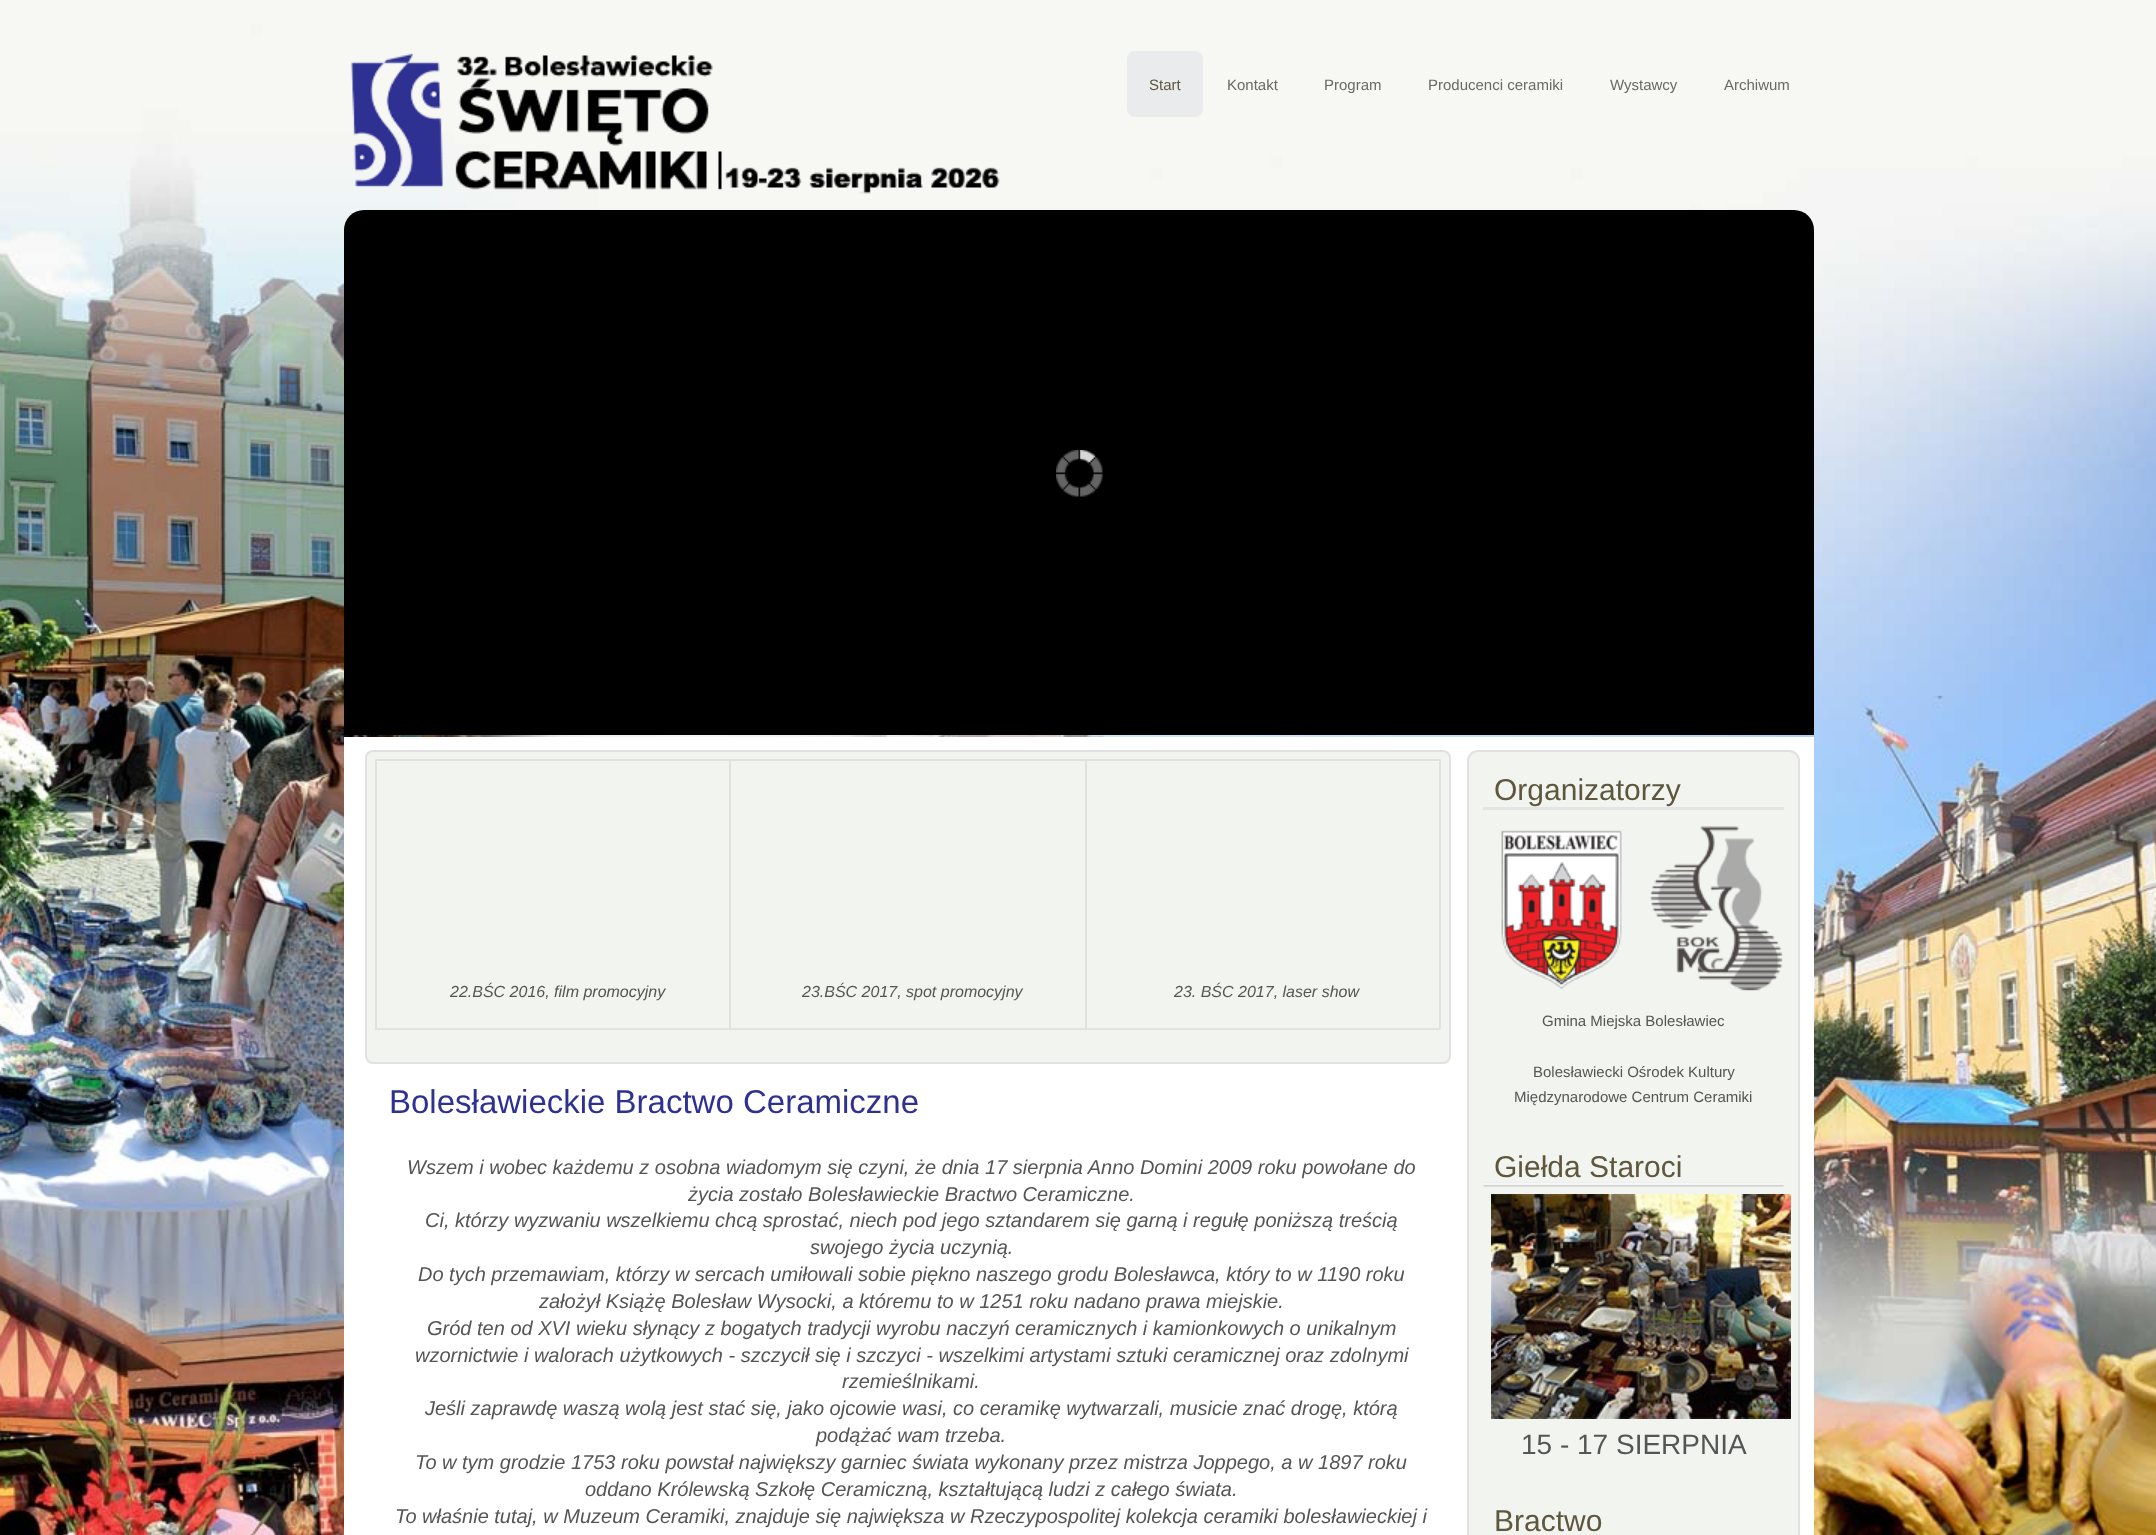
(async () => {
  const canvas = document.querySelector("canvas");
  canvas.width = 2156;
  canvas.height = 1535;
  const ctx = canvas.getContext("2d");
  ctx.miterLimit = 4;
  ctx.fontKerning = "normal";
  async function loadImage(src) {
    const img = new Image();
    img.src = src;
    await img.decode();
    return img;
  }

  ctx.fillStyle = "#ffffff";
  ctx.fillRect(0, 0, 2156, 1535);
  ctx.drawImage(await loadImage("img/1.png"), 0, 0, 2156, 1535);
  ctx.drawImage(await loadImage("img/2.png"), 350, 53, 650, 141);
  ctx.fillStyle = "#eaebec";
  ctx.beginPath();
  ctx.roundRect(1127, 51, 76, 66, 8);
  ctx.fill();
  ctx.fillStyle = "#000000";
  ctx.beginPath();
  ctx.roundRect(344, 210, 1470, 525, [20, 20, 0, 0]);
  ctx.fill();
  ctx.drawImage(await loadImage("img/3.png"), 1056, 450, 47, 47);
  ctx.fillStyle = "#ffffff";
  ctx.fillRect(344, 737, 1470, 798);
  ctx.fillStyle = "#f2f4ef";
  ctx.beginPath();
  ctx.roundRect(366, 751, 1084, 312, 7);
  ctx.fill();
  ctx.strokeStyle = "#e1e1e1";
  ctx.lineWidth = 2;
  ctx.stroke();
  for (const [x, y, w, h, color] of [
    [375, 759, 1065, 2, "#e1e1e1"],
    [1439, 759, 2, 270, "#e1e1e1"],
    [375, 1028, 1065, 2, "#e1e1e1"],
    [375, 759, 2, 270, "#e1e1e1"],
    [729, 759, 2, 270, "#e1e1e1"],
    [1085, 759, 2, 270, "#e1e1e1"],
  ]) {
    ctx.fillStyle = color;
    ctx.fillRect(x, y, w, h);
  }
  ctx.fillStyle = "#f2f4ef";
  ctx.beginPath();
  ctx.roundRect(1468, 751, 331, 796, 10);
  ctx.fill();
  ctx.stroke();
  ctx.fillStyle = "#e4e4e4";
  ctx.fillRect(1483, 807, 301, 3);
  ctx.drawImage(await loadImage("img/4.png"), 1501, 826, 282, 165);
  ctx.drawImage(await loadImage("img/5.png"), 1483, 1182, 301, 5);
  ctx.drawImage(await loadImage("img/6.png"), 1491, 1194, 300, 225);
  ctx.font = "15px Liberation Sans";
  ctx.fillStyle = "#5e573e";
  ctx.fillText("Start", 1149, 90);
  ctx.fillStyle = "#696969";
  for (const [text, x, y] of [
    ["Kontakt", 1227, 90],
    ["Program", 1324, 90],
    ["Producenci ceramiki", 1428, 90],
    ["Wystawcy", 1610, 90],
    ["Archiwum", 1724, 90],
  ]) {
    ctx.fillText(text, x, y);
  }
  ctx.font = "italic 16px Liberation Sans";
  ctx.fillStyle = "#555555";
  for (const [text, x, y] of [
    ["22.BŚC 2016, film promocyjny", 450, 997],
    ["23.BŚC 2017, spot promocyjny", 802, 997],
    ["23. BŚC 2017, laser show", 1174, 997],
  ]) {
    ctx.fillText(text, x, y);
  }
  ctx.font = "30px Liberation Sans";
  ctx.fillStyle = "#5e573e";
  ctx.fillText("Organizatorzy", 1494, 800);
  ctx.font = "15px Liberation Sans";
  ctx.fillStyle = "#555555";
  for (const [text, x, y] of [
    ["Gmina Miejska Bolesławiec", 1542, 1026],
    ["Bolesławiecki Ośrodek Kultury", 1533, 1077],
    ["Międzynarodowe Centrum Ceramiki", 1514, 1102],
  ]) {
    ctx.fillText(text, x, y);
  }
  ctx.font = "30px Liberation Sans";
  ctx.fillStyle = "#5e573e";
  ctx.fillText("Giełda Staroci", 1494, 1177);
  ctx.font = "28px Liberation Sans";
  ctx.fillStyle = "#555555";
  ctx.fillText("15 - 17 SIERPNIA", 1521, 1454);
  ctx.font = "30px Liberation Sans";
  ctx.fillStyle = "#5e573e";
  ctx.fillText("Bractwo", 1494, 1531);
  ctx.font = "33px Liberation Sans";
  ctx.fillStyle = "#2e3192";
  ctx.fillText("Bolesławieckie Bractwo Ceramiczne", 389, 1113);
  ctx.font = "italic 20px Liberation Sans";
  ctx.fillStyle = "#555555";
  for (const [text, x, y] of [
    ["Wszem i wobec każdemu z osobna wiadomym się czyni, że dnia 17 sierpnia Anno Domini 2009 roku powołane do", 407, 1174],
    ["życia zostało Bolesławieckie Bractwo Ceramiczne.", 688, 1201],
    ["Ci, którzy wyzwaniu wszelkiemu chcą sprostać, niech pod jego sztandarem się garną i regułę poniższą treścią", 425, 1227],
    ["swojego życia uczynią.", 810, 1254],
    ["Do tych przemawiam, którzy w sercach umiłowali sobie piękno naszego grodu Bolesławca, który to w 1190 roku", 418, 1281],
    ["założył Książę Bolesław Wysocki, a któremu to w 1251 roku nadano prawa miejskie.", 539, 1308],
    ["Gród ten od XVI wieku słynący z bogatych tradycji wyrobu naczyń ceramicznych i kamionkowych o unikalnym", 427, 1335],
    ["wzornictwie i walorach użytkowych - szczycił się i szczyci - wszelkimi artystami sztuki ceramicznej oraz zdolnymi", 415, 1362],
    ["rzemieślnikami.", 842, 1388],
    ["Jeśli zaprawdę waszą wolą jest stać się, jako ojcowie wasi, co ceramikę wytwarzali, musicie znać drogę, którą", 425, 1415],
    ["podążać wam trzeba.", 816, 1442],
    ["To w tym grodzie 1753 roku powstał największy garniec świata wykonany przez mistrza Joppego, a w 1897 roku", 415, 1469],
    ["oddano Królewską Szkołę Ceramiczną, kształtującą ludzi z całego świata.", 585, 1496],
    ["To właśnie tutaj, w Muzeum Ceramiki, znajduje się największa w Rzeczypospolitej kolekcja ceramiki bolesławieckiej i", 395, 1523],
  ]) {
    ctx.fillText(text, x, y);
  }
})();
